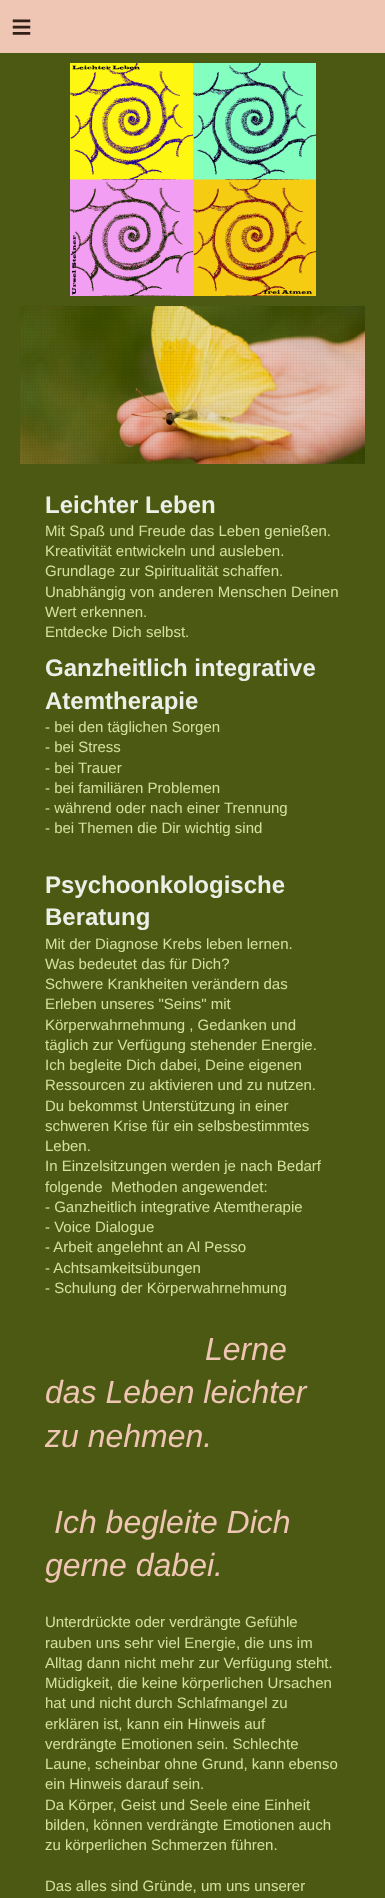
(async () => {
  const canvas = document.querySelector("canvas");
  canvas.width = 385;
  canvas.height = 1898;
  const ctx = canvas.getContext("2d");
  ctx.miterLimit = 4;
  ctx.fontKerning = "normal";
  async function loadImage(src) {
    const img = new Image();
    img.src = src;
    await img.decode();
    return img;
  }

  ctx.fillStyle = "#4b5912";
  ctx.fillRect(0, 0, 385, 1898);
  ctx.fillStyle = "#efc5b3";
  ctx.fillRect(0, 0, 385, 53);
  ctx.drawImage(await loadImage("img/1.png"), 70, 63, 246, 233);
  ctx.drawImage(await loadImage("img/2.png"), 20, 306, 345, 158);
  ctx.drawImage(await loadImage("img/3.png"), 20, 306, 345, 158);
  ctx.letterSpacing = "10px";
  ctx.font = "36px Liberation Sans";
  ctx.fillStyle = "#322017";
  ctx.fillText("≡", 11, 39);
  ctx.letterSpacing = "0px";
  ctx.font = "bold 24px Liberation Sans";
  ctx.fillStyle = "#edeee7";
  ctx.fillText("Leichter Leben", 45, 513);
  ctx.font = "15px Liberation Sans";
  ctx.fillStyle = "#d3e09f";
  for (const [text, x, y] of [
    ["Mit Spaß und Freude das Leben genießen.", 45, 536],
    ["Kreativität entwickeln und ausleben.", 45, 556],
    ["Grundlage zur Spiritualität schaffen.", 45, 576],
    ["Unabhängig von anderen Menschen Deinen", 45, 597],
    ["Wert erkennen.", 45, 617],
    ["Entdecke Dich selbst.", 45, 637],
  ]) {
    ctx.fillText(text, x, y);
  }
  ctx.font = "bold 24px Liberation Sans";
  ctx.fillStyle = "#edeee7";
  ctx.fillText("Ganzheitlich integrative", 45, 676);
  ctx.fillText("Atemtherapie", 45, 709);
  ctx.font = "15px Liberation Sans";
  ctx.fillStyle = "#d3e09f";
  for (const [text, x, y] of [
    ["- bei den täglichen Sorgen", 45, 732],
    ["- bei Stress", 45, 752],
    ["- bei Trauer", 45, 773],
    ["- bei familiären Problemen", 45, 793],
    ["- während oder nach einer Trennung", 45, 813],
    ["- bei Themen die Dir wichtig sind", 45, 833],
  ]) {
    ctx.fillText(text, x, y);
  }
  ctx.font = "bold 24px Liberation Sans";
  ctx.fillStyle = "#edeee7";
  ctx.fillText("Psychoonkologische", 45, 893);
  ctx.fillText("Beratung", 45, 925);
  ctx.font = "15px Liberation Sans";
  ctx.fillStyle = "#d3e09f";
  for (const [text, x, y] of [
    ["Mit der Diagnose Krebs leben lernen.", 45, 949],
    ["Was bedeutet das für Dich?", 45, 969],
    ["Schwere Krankheiten verändern das", 45, 989],
    ["Erleben unseres \"Seins\" mit", 45, 1009],
    ["Körperwahrnehmung , Gedanken und", 45, 1030],
    ["täglich zur Verfügung stehender Energie.", 45, 1050],
    ["Ich begleite Dich dabei, Deine eigenen", 45, 1070],
    ["Ressourcen zu aktivieren und zu nutzen.", 45, 1090],
    ["Du bekommst Unterstützung in einer", 45, 1111],
    ["schweren Krise für ein selbsbestimmtes", 45, 1131],
    ["Leben.", 45, 1151],
    ["In Einzelsitzungen werden je nach Bedarf", 45, 1171],
    ["folgende  Methoden angewendet:", 45, 1192],
    ["- Ganzheitlich integrative Atemtherapie", 45, 1212],
    ["- Voice Dialogue", 45, 1232],
    ["- Arbeit angelehnt an Al Pesso", 45, 1252],
    ["- Achtsamkeitsübungen", 45, 1273],
    ["- Schulung der Körperwahrnehmung", 45, 1293],
  ]) {
    ctx.fillText(text, x, y);
  }
  ctx.font = "italic 32px Liberation Sans";
  ctx.fillStyle = "#efc5b3";
  for (const [text, x, y] of [
    ["Lerne", 205, 1360],
    ["das Leben leichter", 45, 1403],
    ["zu nehmen.", 45, 1447],
    ["Ich begleite Dich", 54, 1533],
    ["gerne dabei.", 45, 1576],
  ]) {
    ctx.fillText(text, x, y);
  }
  ctx.font = "15px Liberation Sans";
  ctx.fillStyle = "#d3e09f";
  for (const [text, x, y] of [
    ["Unterdrückte oder verdrängte Gefühle", 45, 1627],
    ["rauben uns sehr viel Energie, die uns im", 45, 1648],
    ["Alltag dann nicht mehr zur Verfügung steht.", 45, 1668],
    ["Müdigkeit, die keine körperlichen Ursachen", 45, 1688],
    ["hat und nicht durch Schlafmangel zu", 45, 1708],
    ["erklären ist, kann ein Hinweis auf", 45, 1729],
    ["verdrängte Emotionen sein. Schlechte", 45, 1749],
    ["Laune, scheinbar ohne Grund, kann ebenso", 45, 1769],
    ["ein Hinweis darauf sein.", 45, 1789],
    ["Da Körper, Geist und Seele eine Einheit", 45, 1810],
    ["bilden, können verdrängte Emotionen auch", 45, 1830],
    ["zu körperlichen Schmerzen führen.", 45, 1850],
    ["Das alles sind Gründe, um uns unserer", 45, 1891],
  ]) {
    ctx.fillText(text, x, y);
  }
})();
